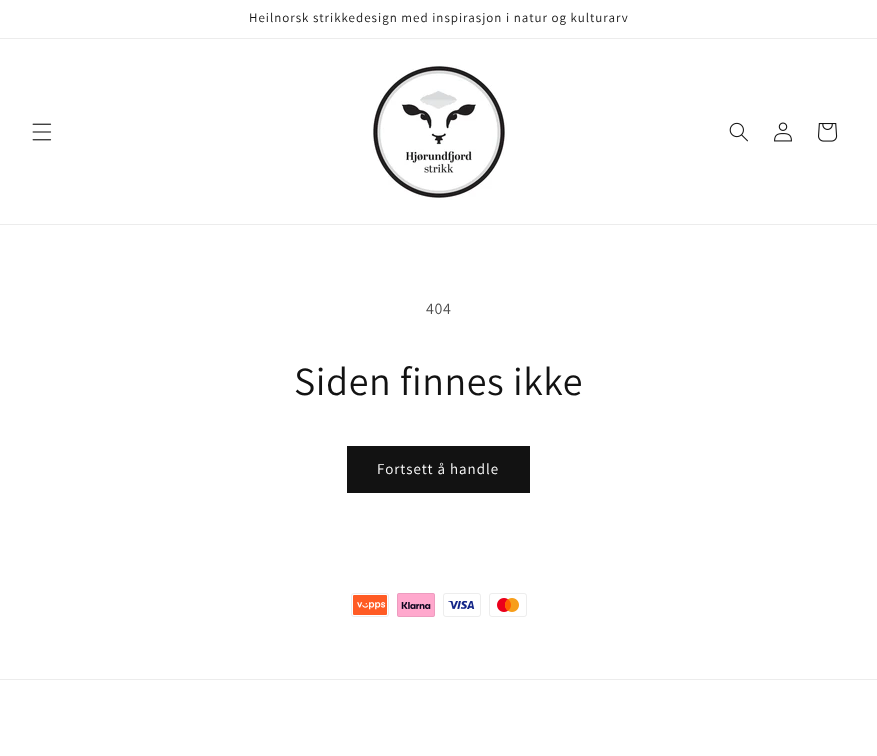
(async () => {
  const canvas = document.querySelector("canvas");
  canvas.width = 877;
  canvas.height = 756;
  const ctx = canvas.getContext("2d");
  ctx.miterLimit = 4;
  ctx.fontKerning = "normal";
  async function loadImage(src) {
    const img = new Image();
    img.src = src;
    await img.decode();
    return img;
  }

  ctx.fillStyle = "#ffffff";
  ctx.fillRect(0, 0, 877, 756);
  ctx.fillStyle = "#ececec";
  ctx.fillRect(0, 38, 877, 1);
  ctx.fillRect(0, 224, 877, 1);
  ctx.drawImage(await loadImage("img/1.png"), 32, 123, 20, 18);
  ctx.drawImage(await loadImage("img/2.png"), 372, 65, 135, 135);
  ctx.drawImage(await loadImage("img/3.png"), 729, 122, 19, 20);
  ctx.drawImage(await loadImage("img/4.png"), 774, 122, 18, 20);
  ctx.drawImage(await loadImage("img/5.png"), 818, 123, 20, 19);
  ctx.fillStyle = "#121212";
  ctx.fillRect(347, 446, 183, 47);
  ctx.drawImage(await loadImage("img/6.png"), 351, 593, 38, 24);
  ctx.drawImage(await loadImage("img/7.png"), 397, 593, 38, 24);
  ctx.drawImage(await loadImage("img/8.png"), 443, 593, 38, 24);
  ctx.drawImage(await loadImage("img/9.png"), 489, 593, 38, 24);
  ctx.fillStyle = "#ececec";
  ctx.fillRect(0, 679, 877, 1);
  ctx.letterSpacing = "1px";
  ctx.font = "13px Assistant";
  ctx.fillStyle = "#121212";
  ctx.fillText("Heilnorsk strikkedesign med inspirasjon i natur og kulturarv", 249, 22);
  ctx.letterSpacing = "0.6px";
  ctx.font = "16px Assistant";
  ctx.fillStyle = "#4d4d4d";
  ctx.fillText("404", 426, 314);
  ctx.font = "40px Assistant";
  ctx.fillStyle = "#121212";
  ctx.fillText("Siden finnes ikke", 294, 395);
  ctx.letterSpacing = "1px";
  ctx.font = "15px Assistant";
  ctx.fillStyle = "#ffffff";
  ctx.fillText("Fortsett å handle", 377, 474);
})();
